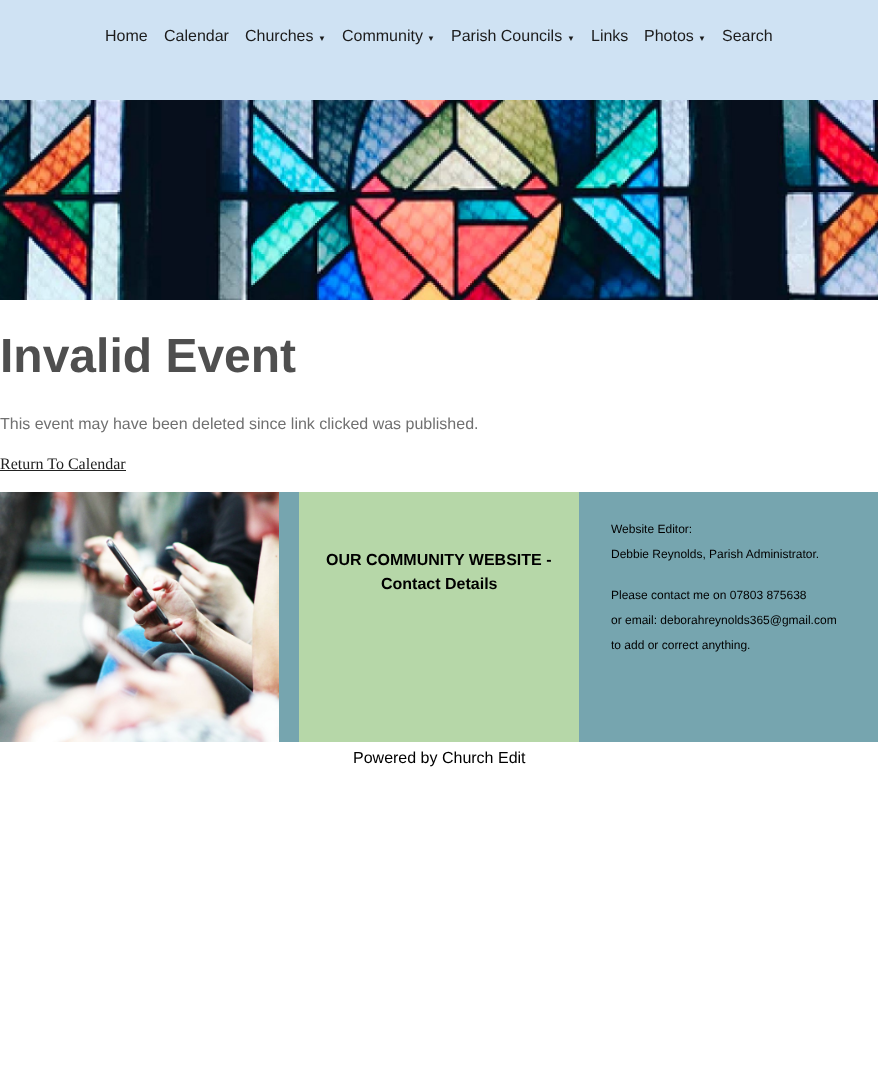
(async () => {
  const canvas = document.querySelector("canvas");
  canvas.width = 878;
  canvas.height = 1074;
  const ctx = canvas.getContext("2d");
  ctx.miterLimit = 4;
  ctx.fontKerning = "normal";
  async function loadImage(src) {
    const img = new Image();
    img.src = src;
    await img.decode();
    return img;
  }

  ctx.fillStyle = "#ffffff";
  ctx.fillRect(0, 0, 878, 1074);
  ctx.fillStyle = "#cfe2f3";
  ctx.fillRect(0, 0, 878, 100);
  ctx.drawImage(await loadImage("img/1.png"), 0, 100, 878, 200);
  ctx.fillStyle = "#222222";
  ctx.fillRect(0, 470, 126, 1);
  ctx.fillStyle = "#76a5af";
  ctx.fillRect(279, 492, 599, 250);
  ctx.drawImage(await loadImage("img/2.png"), 0, 492, 279, 250);
  ctx.fillStyle = "#b6d7a8";
  ctx.fillRect(299, 492, 280, 250);
  ctx.font = "16px Liberation Sans";
  ctx.fillStyle = "#1c1c1c";
  for (const [text, x, y] of [
    ["Home", 105, 41],
    ["Calendar", 164, 41],
    ["Churches", 245, 41],
  ]) {
    ctx.fillText(text, x, y);
  }
  ctx.font = "8px Liberation Serif";
  ctx.fillText("▼", 318, 41);
  ctx.font = "16px Liberation Sans";
  ctx.fillText("Community", 342, 41);
  ctx.font = "8px Liberation Serif";
  ctx.fillText("▼", 427, 41);
  ctx.font = "16px Liberation Sans";
  ctx.fillText("Parish Councils", 451, 41);
  ctx.font = "8px Liberation Serif";
  ctx.fillText("▼", 567, 41);
  ctx.font = "16px Liberation Sans";
  ctx.fillText("Links", 591, 41);
  ctx.fillText("Photos", 644, 41);
  ctx.font = "8px Liberation Serif";
  ctx.fillText("▼", 698, 41);
  ctx.font = "16px Liberation Sans";
  ctx.fillText("Search", 722, 41);
  ctx.font = "bold 48px Liberation Sans";
  ctx.fillStyle = "#4f4f4f";
  ctx.fillText("Invalid Event", 0, 372);
  ctx.font = "16px Liberation Sans";
  ctx.fillStyle = "#707070";
  ctx.fillText("This event may have been deleted since link clicked was published.", 0, 429);
  ctx.font = "16px Liberation Serif";
  ctx.fillStyle = "#222222";
  ctx.fillText("Return To Calendar", 0, 469);
  ctx.font = "bold 16px Liberation Sans";
  ctx.fillStyle = "#000000";
  ctx.fillText("OUR COMMUNITY WEBSITE -", 326, 565);
  ctx.fillText("Contact Details", 381, 589);
  ctx.font = "12px Liberation Sans";
  for (const [text, x, y] of [
    ["Website Editor:", 611, 533],
    ["Debbie Reynolds, Parish Administrator.", 611, 558],
    ["Please contact me on 07803 875638", 611, 599],
    ["or email: deborahreynolds365@gmail.com", 611, 624],
    ["to add or correct anything.", 611, 649],
  ]) {
    ctx.fillText(text, x, y);
  }
  ctx.font = "16px Liberation Sans";
  ctx.fillText("Powered by Church Edit", 353, 763);
})();
